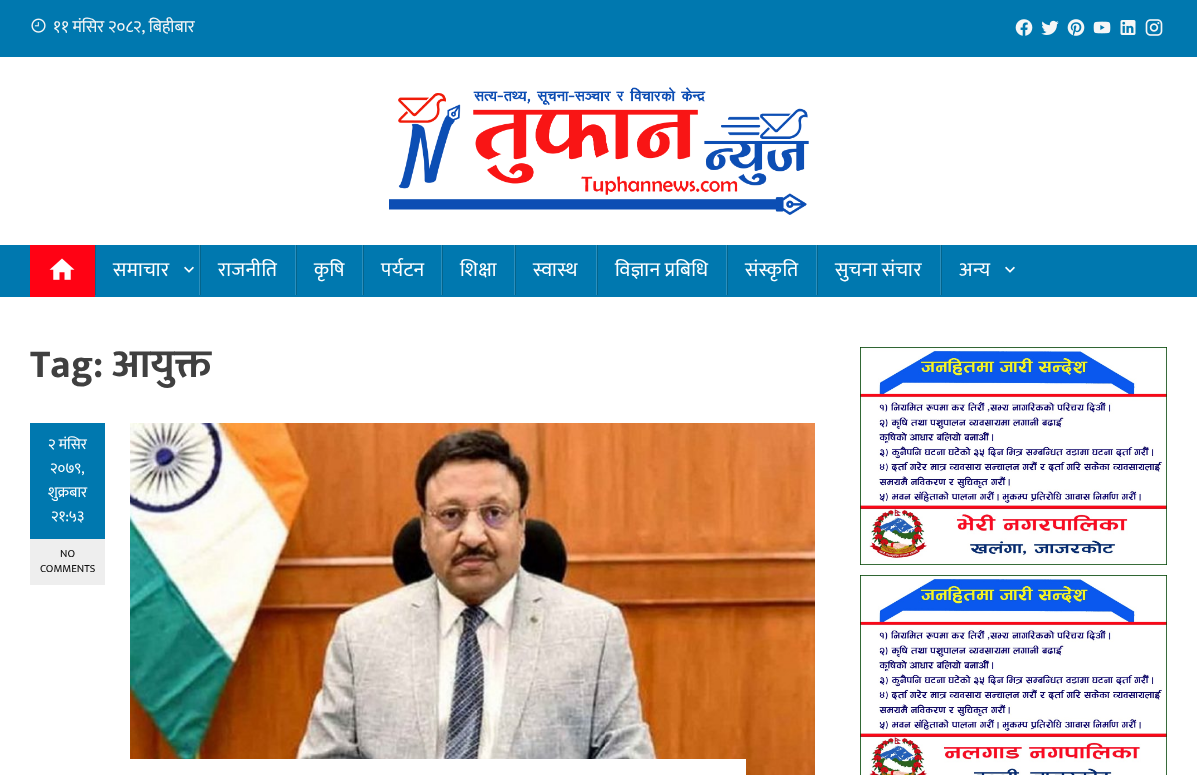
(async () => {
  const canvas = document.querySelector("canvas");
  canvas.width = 1197;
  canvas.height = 775;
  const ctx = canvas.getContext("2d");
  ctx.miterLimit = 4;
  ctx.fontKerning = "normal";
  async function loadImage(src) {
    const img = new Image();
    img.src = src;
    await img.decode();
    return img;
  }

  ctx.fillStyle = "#ffffff";
  ctx.fillRect(0, 0, 1197, 775);
  ctx.fillStyle = "#0078af";
  ctx.fillRect(0, 0, 1197, 57);
  ctx.drawImage(await loadImage("img/1.png"), 31, 18, 15, 15);
  ctx.drawImage(await loadImage("img/2.png"), 1015, 19, 18, 17);
  ctx.drawImage(await loadImage("img/3.png"), 1041, 20, 18, 15);
  ctx.drawImage(await loadImage("img/4.png"), 1067, 19, 18, 17);
  ctx.drawImage(await loadImage("img/5.png"), 1093, 21, 18, 13);
  ctx.drawImage(await loadImage("img/6.png"), 1120, 20, 16, 15);
  ctx.drawImage(await loadImage("img/7.png"), 1145, 19, 18, 17);
  ctx.drawImage(await loadImage("img/8.png"), 389, 87, 420, 128);
  ctx.fillRect(0, 245, 1197, 52);
  ctx.fillStyle = "#ff0214";
  ctx.fillRect(30, 245, 65, 52);
  ctx.drawImage(await loadImage("img/9.png"), 49, 258, 26, 22);
  ctx.fillStyle = "#2b8fbd";
  ctx.fillRect(199, 245, 1, 50);
  ctx.fillStyle = "#04648b";
  ctx.fillRect(95, 245, 1, 50);
  ctx.drawImage(await loadImage("img/10.png"), 184, 266, 10, 7);
  for (const [x, y, w, h, color] of [
    [295, 245, 1, 50, "#2b8fbd"],
    [200, 245, 1, 50, "#04648b"],
    [362, 245, 1, 50, "#2b8fbd"],
    [296, 245, 1, 50, "#04648b"],
    [441, 245, 1, 50, "#2b8fbd"],
    [363, 245, 1, 50, "#04648b"],
    [514, 245, 1, 50, "#2b8fbd"],
    [442, 245, 1, 50, "#04648b"],
    [596, 245, 1, 50, "#2b8fbd"],
    [515, 245, 1, 50, "#04648b"],
    [726, 245, 1, 50, "#2b8fbd"],
    [597, 245, 1, 50, "#04648b"],
    [816, 245, 1, 50, "#2b8fbd"],
    [727, 245, 1, 50, "#04648b"],
    [940, 245, 1, 50, "#2b8fbd"],
    [817, 245, 1, 50, "#04648b"],
    [941, 245, 1, 50, "#04648b"],
  ]) {
    ctx.fillStyle = color;
    ctx.fillRect(x, y, w, h);
  }
  ctx.drawImage(await loadImage("img/10.png"), 1005, 266, 10, 7);
  ctx.fillStyle = "#0078af";
  ctx.fillRect(30, 423, 75, 116);
  ctx.fillStyle = "#eeeeee";
  ctx.fillRect(30, 539, 75, 46);
  ctx.drawImage(await loadImage("img/11.png"), 130, 423, 685, 352);
  ctx.fillStyle = "#ffffff";
  ctx.fillRect(130, 759, 616, 16);
  ctx.drawImage(await loadImage("img/12.png"), 860, 347, 307, 218);
  ctx.drawImage(await loadImage("img/13.png"), 860, 575, 307, 200);
  ctx.font = "17px Mukta";
  ctx.fillStyle = "#f6f6f6";
  ctx.fillText("११ मंसिर २०८२, बिहीबार", 53, 32);
  ctx.letterSpacing = "0.5px";
  ctx.font = "20px Mukta";
  ctx.fillStyle = "#ffffff";
  for (const [text, x, y] of [
    ["समाचार", 113, 276],
    ["राजनीति", 218, 276],
    ["कृषि", 314, 276],
    ["पर्यटन", 381, 276],
    ["शिक्षा", 460, 276],
    ["स्वास्थ", 533, 276],
  ]) {
    ctx.fillText(text, x, y);
  }
  ctx.wordSpacing = "-1px";
  ctx.fillText("विज्ञान प्रबिधि", 615, 276);
  ctx.wordSpacing = "0px";
  ctx.fillText("संस्कृति", 745, 276);
  ctx.wordSpacing = "-1px";
  ctx.fillText("सुचना संचार", 835, 276);
  ctx.wordSpacing = "0px";
  ctx.fillText("अन्य", 959, 276);
  ctx.letterSpacing = "0px";
  ctx.font = "bold 40px Mukta";
  ctx.fillStyle = "#404040";
  ctx.fillText("Tag: आयुक्त", 30, 377);
  ctx.font = "15px Mukta";
  ctx.fillStyle = "#ffffff";
  for (const [text, x, y] of [
    ["२ मंसिर", 48, 449],
    ["२०७९,", 50, 473],
    ["शुक्रबार", 48, 497],
    ["२१:५३", 51, 521],
  ]) {
    ctx.fillText(text, x, y);
  }
  ctx.font = "11px Mukta";
  ctx.fillStyle = "#0e0e0e";
  ctx.fillText("NO", 60, 557);
  ctx.fillText("COMMENTS", 40, 572);
})();
